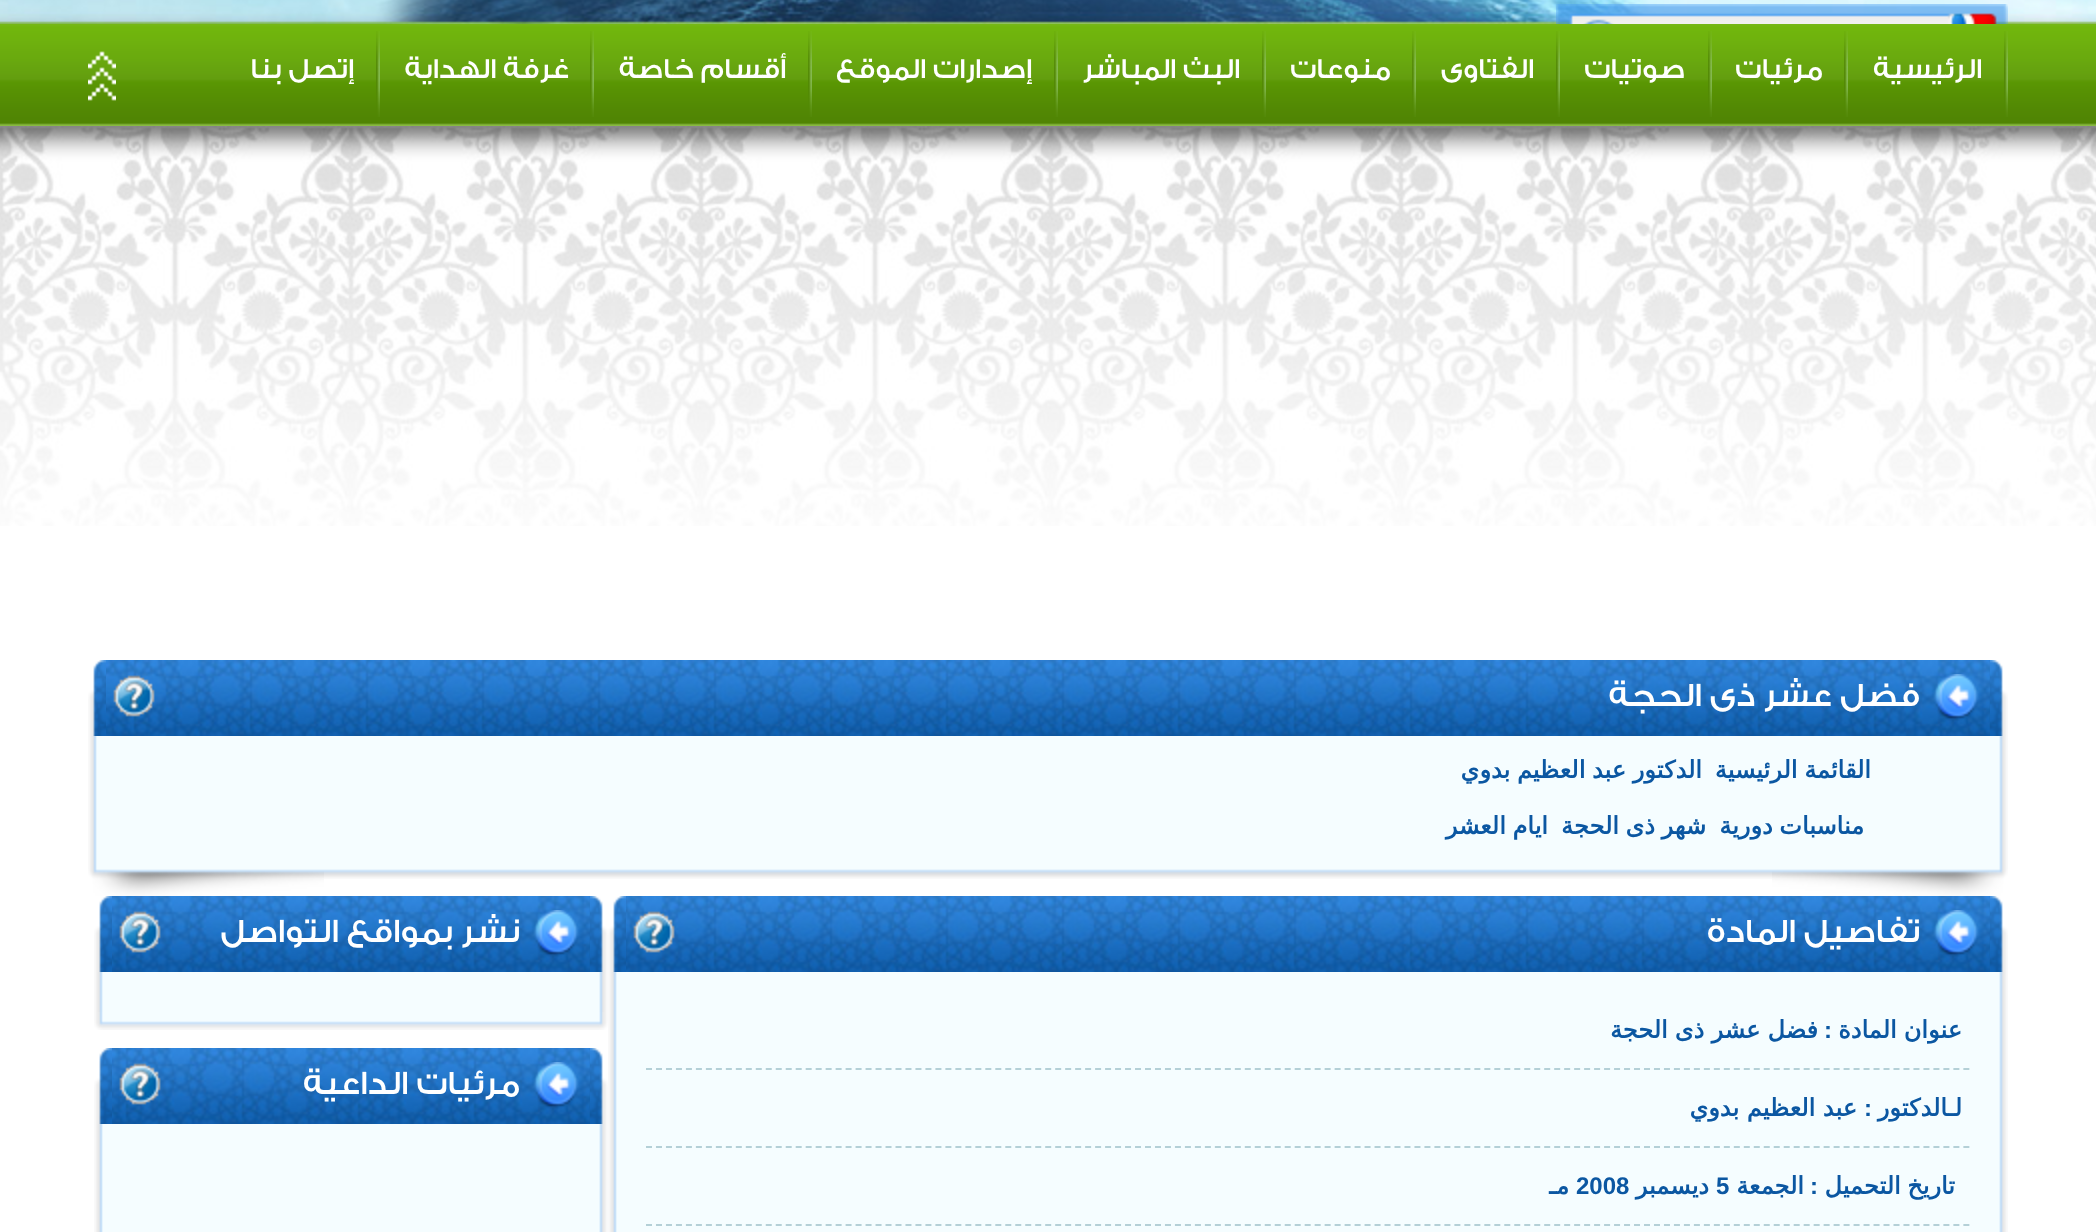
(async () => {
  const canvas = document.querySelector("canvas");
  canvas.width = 2096;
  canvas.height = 1232;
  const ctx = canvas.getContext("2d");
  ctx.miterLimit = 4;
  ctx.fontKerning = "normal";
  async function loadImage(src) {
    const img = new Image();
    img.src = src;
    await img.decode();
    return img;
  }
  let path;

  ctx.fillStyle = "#ffffff";
  ctx.fillRect(0, 0, 2096, 1232);
  ctx.drawImage(await loadImage("img/1.png"), 0, 0, 2096, 24);
  ctx.drawImage(await loadImage("img/2.png"), 1556, 4, 452, 20);
  ctx.drawImage(await loadImage("img/3.png"), 0, 24, 2096, 102);
  ctx.drawImage(await loadImage("img/4.png"), 2004, 31, 4, 86);
  ctx.drawImage(await loadImage("img/4.png"), 1844, 31, 4, 86);
  ctx.drawImage(await loadImage("img/4.png"), 1708, 31, 4, 86);
  ctx.drawImage(await loadImage("img/4.png"), 1556, 31, 4, 86);
  ctx.drawImage(await loadImage("img/4.png"), 1412, 31, 4, 86);
  ctx.drawImage(await loadImage("img/4.png"), 1262, 31, 4, 86);
  ctx.drawImage(await loadImage("img/4.png"), 1054, 31, 4, 86);
  ctx.drawImage(await loadImage("img/4.png"), 808, 31, 4, 86);
  ctx.drawImage(await loadImage("img/4.png"), 590, 31, 4, 86);
  ctx.drawImage(await loadImage("img/4.png"), 376, 31, 4, 86);
  ctx.drawImage(await loadImage("img/5.png"), 88, 51, 28, 50);
  ctx.drawImage(await loadImage("img/6.png"), 0, 126, 2096, 400);
  ctx.drawImage(await loadImage("img/7.png"), 1990, 660, 18, 76);
  ctx.drawImage(await loadImage("img/8.png"), 88, 660, 18, 76);
  ctx.drawImage(await loadImage("img/9.png"), 106, 660, 1884, 76);
  ctx.drawImage(await loadImage("img/10.png"), 1933, 674, 46, 47);
  ctx.drawImage(await loadImage("img/11.png"), 113, 675, 42, 42);
  ctx.drawImage(await loadImage("img/12.png"), 1990, 736, 18, 124);
  ctx.drawImage(await loadImage("img/13.png"), 88, 736, 18, 124);
  ctx.fillStyle = "#f5fdff";
  ctx.fillRect(106, 736, 1884, 124);
  ctx.drawImage(await loadImage("img/14.png"), 1772, 860, 236, 36);
  ctx.drawImage(await loadImage("img/15.png"), 88, 860, 236, 36);
  ctx.drawImage(await loadImage("img/16.png"), 324, 860, 1448, 19);
  ctx.drawImage(await loadImage("img/7.png"), 1990, 896, 18, 76);
  ctx.drawImage(await loadImage("img/8.png"), 608, 896, 18, 76);
  ctx.drawImage(await loadImage("img/17.png"), 626, 896, 1364, 76);
  ctx.drawImage(await loadImage("img/10.png"), 1933, 910, 46, 47);
  ctx.drawImage(await loadImage("img/18.png"), 633, 911, 42, 42);
  ctx.drawImage(await loadImage("img/19.png"), 1990, 972, 18, 260);
  ctx.drawImage(await loadImage("img/20.png"), 608, 972, 18, 260);
  ctx.fillRect(626, 972, 1364, 260);
  path = new Path2D("M646 1069H1970");
  ctx.strokeStyle = "#b4d0d7";
  ctx.lineWidth = 2;
  ctx.setLineDash([6, 3.98]);
  ctx.stroke(path);
  path = new Path2D("M646 1147H1970");
  ctx.stroke(path);
  path = new Path2D("M646 1225H1970");
  ctx.stroke(path);
  ctx.drawImage(await loadImage("img/7.png"), 590, 896, 18, 76);
  ctx.drawImage(await loadImage("img/8.png"), 94, 896, 18, 76);
  ctx.drawImage(await loadImage("img/21.png"), 112, 896, 478, 76);
  ctx.drawImage(await loadImage("img/10.png"), 533, 910, 46, 47);
  ctx.drawImage(await loadImage("img/22.png"), 119, 911, 42, 42);
  ctx.drawImage(await loadImage("img/23.png"), 590, 972, 18, 40);
  ctx.drawImage(await loadImage("img/24.png"), 94, 972, 18, 40);
  ctx.fillRect(112, 972, 478, 40);
  ctx.drawImage(await loadImage("img/25.png"), 590, 1012, 18, 18);
  ctx.drawImage(await loadImage("img/26.png"), 94, 1012, 18, 18);
  ctx.drawImage(await loadImage("img/27.png"), 112, 1012, 478, 18);
  ctx.drawImage(await loadImage("img/7.png"), 590, 1048, 18, 76);
  ctx.drawImage(await loadImage("img/8.png"), 94, 1048, 18, 76);
  ctx.drawImage(await loadImage("img/21.png"), 112, 1048, 478, 76);
  ctx.drawImage(await loadImage("img/10.png"), 533, 1062, 46, 47);
  ctx.drawImage(await loadImage("img/22.png"), 119, 1063, 42, 42);
  ctx.drawImage(await loadImage("img/28.png"), 590, 1124, 18, 108);
  ctx.drawImage(await loadImage("img/29.png"), 94, 1124, 18, 108);
  ctx.fillRect(112, 1124, 478, 108);
  ctx.direction = "rtl";
  ctx.font = "500 29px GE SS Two";
  ctx.fillStyle = "#ffffff";
  for (const [text, x, y] of [
    ["الرئيسية", 1982, 78],
    ["مرئيات", 1823, 78],
    ["صوتيات", 1685, 78],
    ["الفتاوى", 1534, 78],
    ["منوعات", 1391, 78],
    ["البث المباشر", 1240, 78],
    ["إصدارات الموقع", 1032, 78],
    ["أقسام خاصة", 786, 78],
    ["غرفة الهداية", 569, 78],
    ["إتصل بنا", 354, 78],
  ]) {
    ctx.fillText(text, x, y);
  }
  ctx.font = "500 34.25px GE SS Two";
  ctx.fillText("فضل عشر ذى الحجة", 1920, 706);
  ctx.wordSpacing = "-1px";
  ctx.font = "bold 24px DejaVu Sans";
  ctx.fillStyle = "#0b57a2";
  for (const [text, x, y] of [
    ["القائمة الرئيسية", 1871, 778],
    ["الدكتور عبد العظيم بدوي", 1702, 778],
    ["مناسبات دورية", 1864, 834],
    ["شهر ذى الحجة", 1706, 834],
    ["ايام العشر", 1548, 834],
  ]) {
    ctx.fillText(text, x, y);
  }
  ctx.wordSpacing = "0px";
  ctx.font = "500 34.25px GE SS Two";
  ctx.fillStyle = "#ffffff";
  ctx.fillText("تفاصيل المادة", 1920, 942);
  ctx.wordSpacing = "-0.5px";
  ctx.font = "bold 24px DejaVu Sans";
  ctx.fillStyle = "#0b57a2";
  ctx.fillText("عنوان المادة", 1962, 1038);
  ctx.wordSpacing = "0px";
  ctx.font = "bold 24px Liberation Sans";
  ctx.fillText(":", 1832, 1038);
  ctx.wordSpacing = "-0.5px";
  ctx.font = "bold 24px DejaVu Sans";
  ctx.fillText("فضل عشر ذى الحجة", 1818, 1038);
  ctx.wordSpacing = "0px";
  ctx.fillText("لـالدكتور", 1962, 1116);
  ctx.font = "bold 24px Liberation Sans";
  ctx.fillText(":", 1872, 1116);
  ctx.font = "bold 24px DejaVu Sans";
  ctx.fillText("عبد العظيم بدوي", 1857, 1116);
  ctx.wordSpacing = "-1px";
  ctx.fillText("تاريخ التحميل", 1955, 1194);
  ctx.wordSpacing = "0px";
  ctx.font = "bold 24px Liberation Sans";
  ctx.fillText(":", 1818, 1194);
  ctx.font = "bold 24px DejaVu Sans";
  ctx.fillText("الجمعة", 1804, 1194);
  ctx.direction = "ltr";
  ctx.font = "bold 24px Liberation Sans";
  ctx.fillText("5", 1716, 1194);
  ctx.direction = "rtl";
  ctx.font = "bold 24px DejaVu Sans";
  ctx.fillText("ديسمبر", 1709, 1194);
  ctx.direction = "ltr";
  ctx.font = "bold 24px Liberation Sans";
  ctx.fillText("2008", 1576, 1194);
  ctx.direction = "rtl";
  ctx.font = "bold 24px DejaVu Sans";
  ctx.fillText("مـ", 1569, 1194);
  ctx.font = "500 34.25px GE SS Two";
  ctx.fillStyle = "#ffffff";
  ctx.fillText("نشر بمواقع التواصل", 520, 942);
  ctx.fillText("مرئيات الداعية", 520, 1094);
})();
